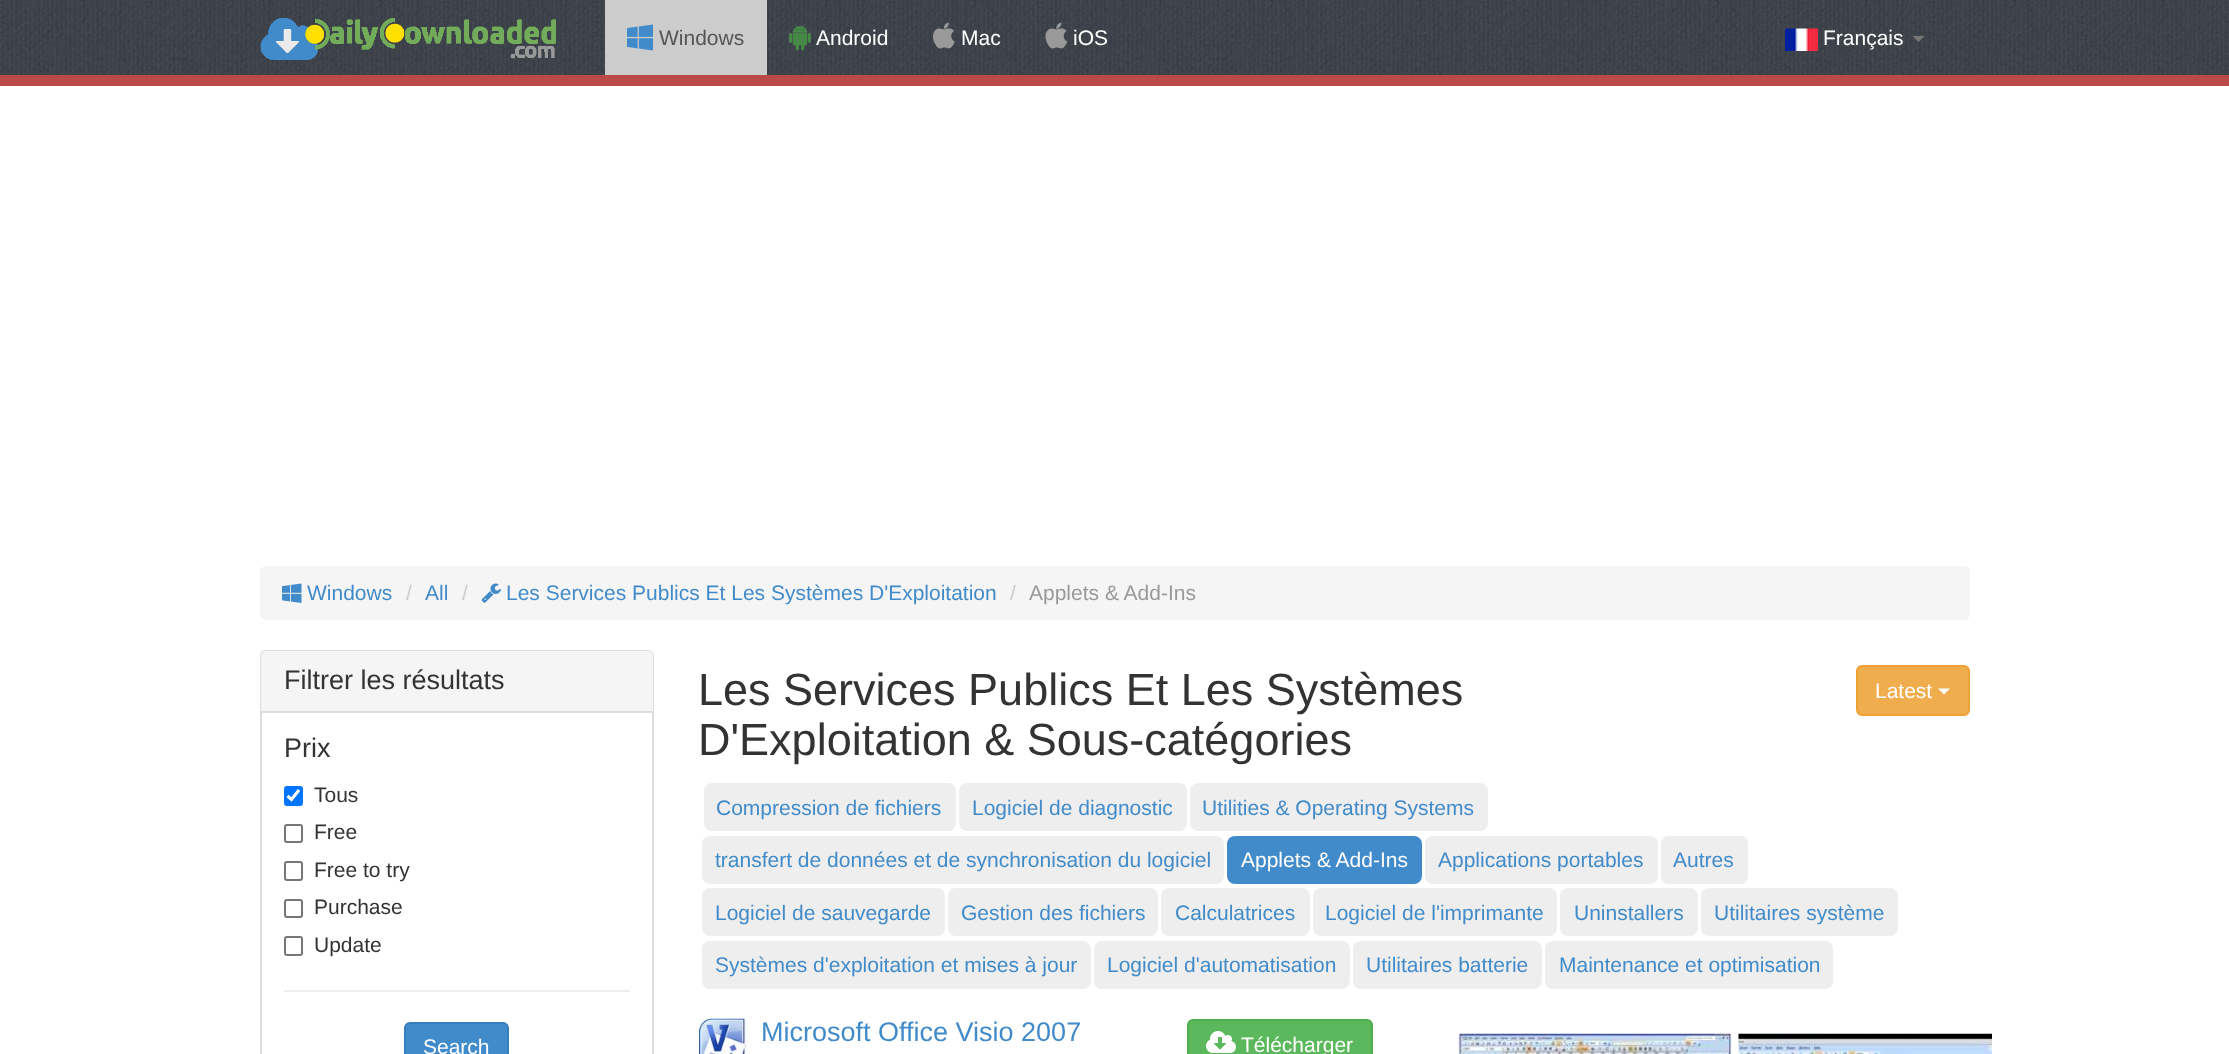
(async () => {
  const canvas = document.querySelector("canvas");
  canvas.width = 2229;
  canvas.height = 1054;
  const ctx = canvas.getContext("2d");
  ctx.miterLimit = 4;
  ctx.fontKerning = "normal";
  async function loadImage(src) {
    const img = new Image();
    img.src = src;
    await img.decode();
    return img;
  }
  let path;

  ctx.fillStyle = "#ffffff";
  ctx.fillRect(0, 0, 2229, 1054);
  ctx.drawImage(await loadImage("img/1.png"), 0, 0, 2229, 75);
  ctx.fillStyle = "#b94a48";
  ctx.fillRect(0, 75, 2229, 11);
  ctx.drawImage(await loadImage("img/2.png"), 260, 18, 296, 42);
  ctx.fillStyle = "#cccccc";
  ctx.fillRect(605, 0, 162, 75);
  ctx.drawImage(await loadImage("img/3.png"), 627, 24, 26, 27);
  ctx.drawImage(await loadImage("img/4.png"), 789, 24, 22, 27);
  ctx.drawImage(await loadImage("img/5.png"), 933, 22, 22, 27);
  ctx.drawImage(await loadImage("img/6.png"), 1045, 22, 23, 27);
  ctx.drawImage(await loadImage("img/7.png"), 1785, 28, 33, 23);
  ctx.fillStyle = "#777777";
  path = new Path2D("M1912.5 36H1924.5L1918.5 42Z");
  ctx.fill(path);
  ctx.fillStyle = "#f5f5f5";
  ctx.beginPath();
  ctx.roundRect(260, 566, 1710, 54, 6);
  ctx.fill();
  ctx.drawImage(await loadImage("img/8.png"), 282, 583, 20, 20);
  ctx.drawImage(await loadImage("img/9.png"), 481, 583, 20, 20);
  ctx.beginPath();
  ctx.roundRect(261, 651, 392, 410, 5);
  ctx.strokeStyle = "#dddddd";
  ctx.lineWidth = 2;
  ctx.stroke();
  ctx.beginPath();
  ctx.roundRect(261, 651, 392, 62, [5, 5, 0, 0]);
  ctx.fill();
  ctx.fillStyle = "#dddddd";
  ctx.fillRect(261, 711, 392, 2);
  ctx.fillStyle = "#0075ff";
  ctx.beginPath();
  ctx.roundRect(284, 786, 19, 20, 3);
  ctx.fill();
  path = new Path2D("M287.5 796L291.5 799.5L299 790");
  ctx.strokeStyle = "#ffffff";
  ctx.lineWidth = 3.1;
  ctx.stroke(path);
  ctx.beginPath();
  ctx.roundRect(285, 825, 17, 17, 2);
  ctx.strokeStyle = "#767676";
  ctx.lineWidth = 2;
  ctx.stroke();
  ctx.beginPath();
  ctx.roundRect(285, 862, 17, 18, 2);
  ctx.stroke();
  ctx.beginPath();
  ctx.roundRect(285, 900, 17, 17, 2);
  ctx.stroke();
  ctx.beginPath();
  ctx.roundRect(285, 937, 17, 18, 2);
  ctx.stroke();
  ctx.fillStyle = "#eeeeee";
  ctx.fillRect(284, 990, 346, 2);
  ctx.fillStyle = "#428bca";
  ctx.beginPath();
  ctx.roundRect(405, 1023, 103, 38, 5);
  ctx.fill();
  ctx.strokeStyle = "#357ebd";
  ctx.stroke();
  ctx.fillStyle = "#f0ad4e";
  ctx.beginPath();
  ctx.roundRect(1857, 666, 112, 49, 5);
  ctx.fill();
  ctx.strokeStyle = "#eea236";
  ctx.stroke();
  ctx.fillStyle = "#ffffff";
  path = new Path2D("M1938 688.5H1950L1944 694.5Z");
  ctx.fill(path);
  ctx.fillStyle = "#eeeeee";
  ctx.beginPath();
  ctx.roundRect(704, 783, 252, 48, 8);
  ctx.fill();
  ctx.beginPath();
  ctx.roundRect(959, 783, 228, 48, 8);
  ctx.fill();
  ctx.beginPath();
  ctx.roundRect(1190, 783, 298, 48, 8);
  ctx.fill();
  ctx.beginPath();
  ctx.roundRect(702, 836, 522, 48, 8);
  ctx.fill();
  ctx.fillStyle = "#428bca";
  ctx.beginPath();
  ctx.roundRect(1227, 836, 195, 48, 8);
  ctx.fill();
  ctx.fillStyle = "#eeeeee";
  ctx.beginPath();
  ctx.roundRect(1425, 836, 233, 48, 8);
  ctx.fill();
  ctx.beginPath();
  ctx.roundRect(1661, 836, 87, 48, 8);
  ctx.fill();
  ctx.beginPath();
  ctx.roundRect(702, 888, 243, 48, 8);
  ctx.fill();
  ctx.beginPath();
  ctx.roundRect(948, 888, 210, 48, 8);
  ctx.fill();
  ctx.beginPath();
  ctx.roundRect(1161, 888, 149, 48, 8);
  ctx.fill();
  ctx.beginPath();
  ctx.roundRect(1313, 888, 244, 48, 8);
  ctx.fill();
  ctx.beginPath();
  ctx.roundRect(1560, 888, 138, 48, 8);
  ctx.fill();
  ctx.beginPath();
  ctx.roundRect(1701, 888, 197, 48, 8);
  ctx.fill();
  ctx.beginPath();
  ctx.roundRect(702, 941, 389, 48, 8);
  ctx.fill();
  ctx.beginPath();
  ctx.roundRect(1094, 941, 256, 48, 8);
  ctx.fill();
  ctx.beginPath();
  ctx.roundRect(1353, 941, 189, 48, 8);
  ctx.fill();
  ctx.beginPath();
  ctx.roundRect(1545, 941, 288, 48, 8);
  ctx.fill();
  ctx.drawImage(await loadImage("img/10.png"), 699, 1018, 48, 36);
  ctx.fillStyle = "#5cb85c";
  ctx.beginPath();
  ctx.roundRect(1188, 1020, 184, 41, 5);
  ctx.fill();
  ctx.strokeStyle = "#4cae4c";
  ctx.stroke();
  ctx.drawImage(await loadImage("img/11.png"), 1206, 1031, 30, 22);
  ctx.drawImage(await loadImage("img/12.png"), 1458, 1033, 274, 21);
  ctx.drawImage(await loadImage("img/13.png"), 1738, 1033, 254, 21);
  ctx.font = "21px Liberation Sans";
  ctx.fillStyle = "#555555";
  ctx.fillText("Windows", 659, 45);
  ctx.fillStyle = "#ffffff";
  for (const [text, x, y] of [
    ["Android", 816, 45],
    ["Mac", 961, 45],
    ["iOS", 1073, 45],
    ["Français", 1823, 45],
  ]) {
    ctx.fillText(text, x, y);
  }
  ctx.fillStyle = "#428bca";
  ctx.fillText("Windows", 307, 600);
  ctx.fillStyle = "#cccccc";
  ctx.fillText("/", 406, 600);
  ctx.fillStyle = "#428bca";
  ctx.fillText("All", 425, 600);
  ctx.fillStyle = "#cccccc";
  ctx.fillText("/", 462, 600);
  ctx.fillStyle = "#428bca";
  ctx.fillText("Les Services Publics Et Les Systèmes D'Exploitation", 506, 600);
  ctx.fillStyle = "#cccccc";
  ctx.fillText("/", 1010, 600);
  ctx.fillStyle = "#999999";
  ctx.fillText("Applets & Add-Ins", 1029, 600);
  ctx.font = "27px Liberation Sans";
  ctx.fillStyle = "#333333";
  ctx.fillText("Filtrer les résultats", 284, 689);
  ctx.fillText("Prix", 284, 757);
  ctx.font = "21px Liberation Sans";
  for (const [text, x, y] of [
    ["Tous", 314, 802],
    ["Free", 314, 839],
    ["Free to try", 314, 877],
    ["Purchase", 314, 914],
    ["Update", 314, 952],
  ]) {
    ctx.fillText(text, x, y);
  }
  ctx.fillStyle = "#ffffff";
  ctx.fillText("Search", 423, 1054);
  ctx.font = "45px Liberation Sans";
  ctx.fillStyle = "#333333";
  ctx.fillText("Les Services Publics Et Les Systèmes", 698, 705);
  ctx.fillText("D'Exploitation & Sous-catégories", 698, 755);
  ctx.font = "21px Liberation Sans";
  ctx.fillStyle = "#ffffff";
  ctx.fillText("Latest", 1875, 698);
  ctx.fillStyle = "#428bca";
  for (const [text, x, y] of [
    ["Compression de fichiers", 716, 815],
    ["Logiciel de diagnostic", 972, 815],
    ["Utilities & Operating Systems", 1202, 815],
    ["transfert de données et de synchronisation du logiciel", 715, 867],
  ]) {
    ctx.fillText(text, x, y);
  }
  ctx.fillStyle = "#ffffff";
  ctx.fillText("Applets & Add-Ins", 1241, 867);
  ctx.fillStyle = "#428bca";
  for (const [text, x, y] of [
    ["Applications portables", 1438, 867],
    ["Autres", 1673, 867],
    ["Logiciel de sauvegarde", 715, 920],
    ["Gestion des fichiers", 961, 920],
    ["Calculatrices", 1175, 920],
    ["Logiciel de l'imprimante", 1325, 920],
    ["Uninstallers", 1574, 920],
    ["Utilitaires système", 1714, 920],
    ["Systèmes d'exploitation et mises à jour", 715, 972],
    ["Logiciel d'automatisation", 1107, 972],
    ["Utilitaires batterie", 1366, 972],
    ["Maintenance et optimisation", 1559, 972],
  ]) {
    ctx.fillText(text, x, y);
  }
  ctx.font = "27px Liberation Sans";
  ctx.fillText("Microsoft Office Visio 2007", 761, 1041);
  ctx.font = "21px Liberation Sans";
  ctx.fillStyle = "#ffffff";
  ctx.fillText("Télécharger", 1241, 1052);
})();
